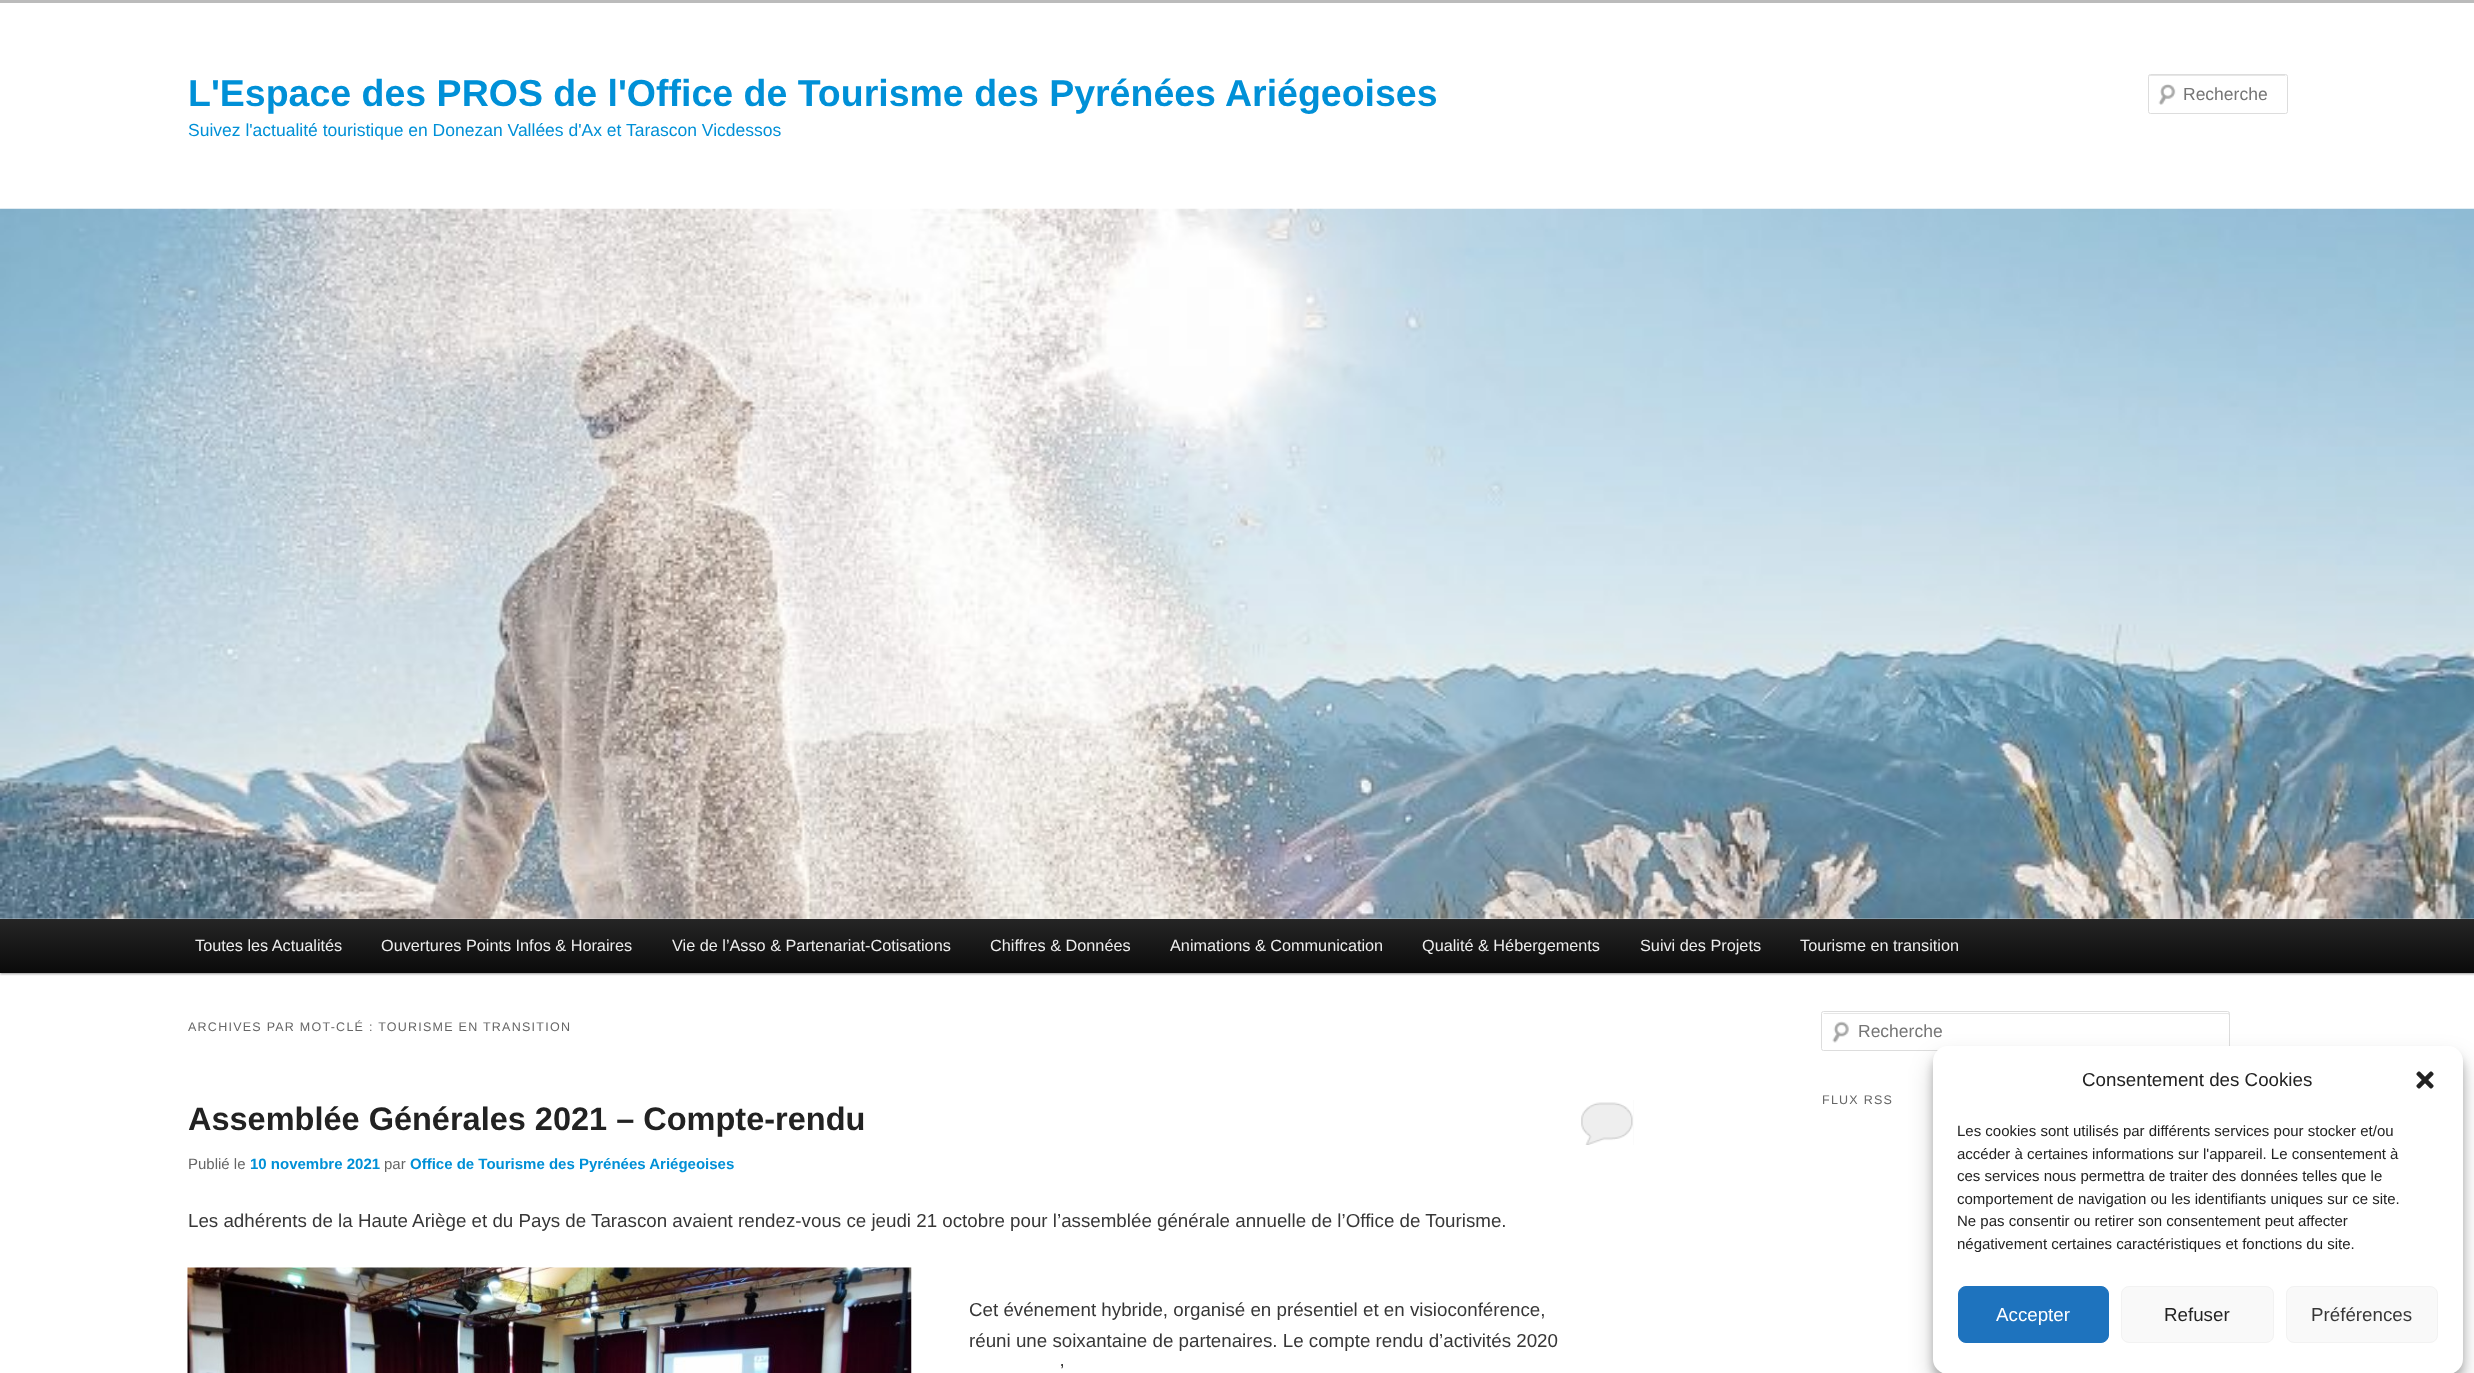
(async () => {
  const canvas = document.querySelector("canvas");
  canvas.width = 2474;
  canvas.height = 1373;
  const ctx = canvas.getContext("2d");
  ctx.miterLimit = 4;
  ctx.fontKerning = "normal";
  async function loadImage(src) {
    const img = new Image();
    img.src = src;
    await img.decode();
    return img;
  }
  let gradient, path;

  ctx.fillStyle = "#ffffff";
  ctx.fillRect(0, 0, 2474, 1373);
  ctx.fillStyle = "#bbbbbb";
  ctx.fillRect(0, 0, 2474, 3);
  ctx.drawImage(await loadImage("img/1.png"), 2158, 84, 18, 21);
  ctx.fillStyle = "#e6e6e6";
  path = new Path2D("M2150 76H2285C2286 76 2286 77 2286 78C2286 77 2286 76 2285 75H2150C2149 75 2149 77 2149 78C2149 77 2149 76 2150 76Z");
  ctx.fill(path);
  ctx.beginPath();
  ctx.roundRect(2148.5, 74.5, 139, 39, 2);
  ctx.strokeStyle = "#dddddd";
  ctx.stroke();
  ctx.fillStyle = "rgba(0, 0, 0, 0.4)";
  ctx.filter = "blur(1px)";
  ctx.beginPath();
  ctx.rect(0, 920, 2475, 54);
  ctx.fill();
  ctx.filter = "none";
  ctx.drawImage(await loadImage("img/2.png"), 0, 208, 2474, 711);
  gradient = ctx.createLinearGradient(1238, 919, 1238, 973);
  gradient.addColorStop(0, "#252525");
  gradient.addColorStop(1, "#0a0a0a");
  ctx.fillStyle = gradient;
  ctx.fillRect(0, 919, 2474, 54);
  ctx.fillStyle = "#eeeeee";
  ctx.fillRect(1581, 1100, 53, 45);
  ctx.drawImage(await loadImage("img/3.png"), 1580, 1100, 54, 45);
  ctx.drawImage(await loadImage("img/4.png"), 187, 1267, 725, 106);
  ctx.drawImage(await loadImage("img/5.png"), 1832, 1021, 17, 22);
  ctx.fillStyle = "#e6e6e6";
  path = new Path2D("M1824 1014H2228L2229 1015V1013H1824L1823 1014Z");
  ctx.fill(path);
  ctx.beginPath();
  ctx.roundRect(1821.5, 1011.5, 408, 39, 2);
  ctx.stroke();
  ctx.fillStyle = "rgba(0, 0, 0, 0.23)";
  ctx.filter = "blur(4px)";
  ctx.beginPath();
  ctx.roundRect(1933, 1054, 530, 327, 15);
  ctx.fill();
  ctx.filter = "none";
  ctx.fillStyle = "rgba(0, 0, 0, 0.19)";
  ctx.filter = "blur(12.5px)";
  ctx.beginPath();
  ctx.roundRect(1933, 1059, 530, 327, 15);
  ctx.fill();
  ctx.filter = "none";
  ctx.fillStyle = "#ffffff";
  ctx.beginPath();
  ctx.roundRect(1933, 1046, 530, 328, 15);
  ctx.fill();
  ctx.drawImage(await loadImage("img/6.png"), 2416, 1071, 18, 18);
  ctx.fillStyle = "#1e73be";
  ctx.beginPath();
  ctx.roundRect(1958.5, 1286.5, 150, 56, 7.5);
  ctx.fill();
  ctx.strokeStyle = "#1e73be";
  ctx.stroke();
  ctx.fillStyle = "#f9f9f9";
  ctx.beginPath();
  ctx.roundRect(2121.5, 1286.5, 152, 56, 7.5);
  ctx.fill();
  ctx.strokeStyle = "#f2f2f2";
  ctx.stroke();
  ctx.beginPath();
  ctx.roundRect(2286.5, 1286.5, 151, 56, 7.5);
  ctx.fill();
  ctx.stroke();
  ctx.font = "bold 37.5px Liberation Sans";
  ctx.fillStyle = "#0090d7";
  ctx.fillText("L'Espace des PROS de l'Office de Tourisme des Pyrénées Ariégeoises", 188, 106);
  ctx.font = "17.5px Liberation Sans";
  ctx.fillText("Suivez l'actualité touristique en Donezan Vallées d'Ax et Tarascon Vicdessos", 188, 136);
  ctx.fillStyle = "#757575";
  ctx.fillText("Recherche", 2183, 100);
  ctx.font = "16.25px Liberation Sans";
  ctx.fillStyle = "#eeeeee";
  for (const [text, x, y] of [
    ["Toutes les Actualités", 195, 951],
    ["Ouvertures Points Infos & Horaires", 381, 951],
    ["Vie de l’Asso & Partenariat-Cotisations", 672, 951],
    ["Chiffres & Données", 990, 951],
    ["Animations & Communication", 1170, 951],
    ["Qualité & Hébergements", 1422, 951],
    ["Suivi des Projets", 1640, 951],
    ["Tourisme en transition", 1800, 951],
  ]) {
    ctx.fillText(text, x, y);
  }
  ctx.letterSpacing = "1.25px";
  ctx.font = "12.5px Liberation Sans";
  ctx.fillStyle = "#666666";
  ctx.fillText("ARCHIVES PAR MOT-CLÉ : TOURISME EN TRANSITION", 188, 1031);
  ctx.letterSpacing = "0px";
  ctx.font = "bold 32.5px Liberation Sans";
  ctx.fillStyle = "#222222";
  ctx.fillText("Assemblée Générales 2021 – Compte-rendu", 188, 1130);
  ctx.font = "15px Liberation Sans";
  ctx.fillStyle = "#666666";
  ctx.fillText("Publié le", 188, 1169);
  ctx.font = "bold 15px Liberation Sans";
  ctx.fillStyle = "#0090d7";
  ctx.fillText("10 novembre 2021", 250, 1169);
  ctx.font = "15px Liberation Sans";
  ctx.fillStyle = "#666666";
  ctx.fillText("par", 384, 1169);
  ctx.font = "bold 15px Liberation Sans";
  ctx.fillStyle = "#0090d7";
  ctx.fillText("Office de Tourisme des Pyrénées Ariégeoises", 410, 1169);
  ctx.font = "18.75px Liberation Sans";
  ctx.fillStyle = "#373737";
  for (const [text, x, y] of [
    ["Les adhérents de la Haute Ariège et du Pays de Tarascon avaient rendez-vous ce jeudi 21 octobre pour l’assemblée générale annuelle de l’Office de Tourisme.", 188, 1227],
    ["Cet événement hybride, organisé en présentiel et en visioconférence,", 969, 1316],
    ["réuni une soixantaine de partenaires. Le compte rendu d’activités 2020", 969, 1347],
    ["’", 1060, 1377],
  ]) {
    ctx.fillText(text, x, y);
  }
  ctx.font = "17.5px Liberation Sans";
  ctx.fillStyle = "#757575";
  ctx.fillText("Recherche", 1858, 1037);
  ctx.letterSpacing = "1.25px";
  ctx.font = "12.5px Liberation Sans";
  ctx.fillStyle = "#666666";
  ctx.fillText("FLUX RSS", 1822, 1104);
  ctx.letterSpacing = "0px";
  ctx.font = "18.75px Liberation Sans";
  ctx.fillStyle = "#222222";
  ctx.fillText("Consentement des Cookies", 2082, 1086);
  ctx.font = "15px Liberation Sans";
  for (const [text, x, y] of [
    ["Les cookies sont utilisés par différents services pour stocker et/ou", 1957, 1136],
    ["accéder à certaines informations sur l'appareil. Le consentement à", 1957, 1159],
    ["ces services nous permettra de traiter des données telles que le", 1957, 1181],
    ["comportement de navigation ou les identifiants uniques sur ce site.", 1957, 1204],
    ["Ne pas consentir ou retirer son consentement peut affecter", 1957, 1226],
    ["négativement certaines caractéristiques et fonctions du site.", 1957, 1249],
  ]) {
    ctx.fillText(text, x, y);
  }
  ctx.font = "18.75px Liberation Sans";
  ctx.fillStyle = "#ffffff";
  ctx.fillText("Accepter", 1996, 1321);
  ctx.fillStyle = "#222222";
  ctx.fillText("Refuser", 2164, 1321);
  ctx.fillStyle = "#373737";
  ctx.fillText("Préférences", 2311, 1321);
})();
